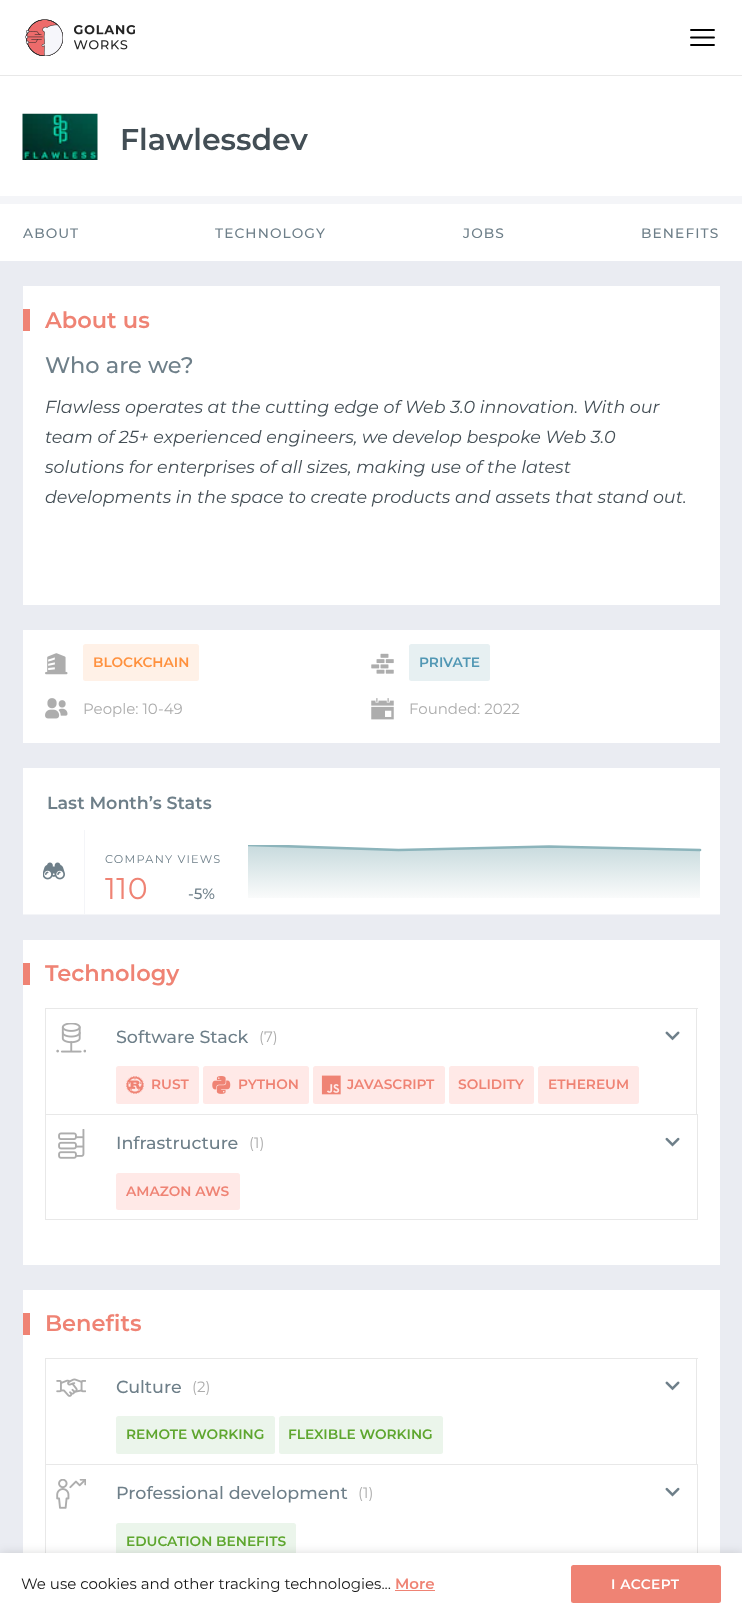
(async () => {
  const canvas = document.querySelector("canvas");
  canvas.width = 742;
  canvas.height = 1614;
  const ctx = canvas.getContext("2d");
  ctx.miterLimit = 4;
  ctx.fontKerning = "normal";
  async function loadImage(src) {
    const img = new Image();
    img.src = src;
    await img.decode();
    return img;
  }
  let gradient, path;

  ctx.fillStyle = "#eaecf2";
  ctx.fillRect(0, 0, 742, 1614);
  ctx.fillStyle = "#ffffff";
  ctx.fillRect(0, 0, 742, 75);
  ctx.fillStyle = "#e8e8e8";
  ctx.fillRect(0, 75, 742, 1);
  ctx.drawImage(await loadImage("img/1.png"), 25, 19, 38, 37);
  ctx.drawImage(await loadImage("img/2.png"), 74, 25, 61, 25);
  path = new Path2D("M691 37.5H714M691 30H714M691 45H714");
  ctx.strokeStyle = "#000000";
  ctx.lineWidth = 1.9;
  ctx.lineCap = "round";
  ctx.lineJoin = "round";
  ctx.stroke(path);
  ctx.fillStyle = "#ffffff";
  ctx.fillRect(0, 76, 742, 185);
  ctx.drawImage(await loadImage("img/3.png"), 22, 113, 76, 47);
  for (const [x, y, w, h, color] of [
    [0, 196, 742, 8, "#f4f5f8"],
    [23, 286, 697, 319, "#ffffff"],
    [23, 309, 7, 22, "#ef8374"],
    [23, 630, 697, 113, "#ffffff"],
  ]) {
    ctx.fillStyle = color;
    ctx.fillRect(x, y, w, h);
  }
  ctx.drawImage(await loadImage("img/4.png"), 45, 653, 23, 22);
  ctx.fillStyle = "#fff1e7";
  ctx.beginPath();
  ctx.roundRect(83, 644, 116, 37, 2.5);
  ctx.fill();
  ctx.drawImage(await loadImage("img/5.png"), 371, 653, 23, 21);
  ctx.fillStyle = "#e7f0f2";
  ctx.beginPath();
  ctx.roundRect(409, 644, 81, 37, 2.5);
  ctx.fill();
  ctx.drawImage(await loadImage("img/6.png"), 45, 698, 23, 21);
  ctx.drawImage(await loadImage("img/7.png"), 371, 698, 23, 22);
  for (const [x, y, w, h, color] of [
    [23, 768, 697, 146, "#ffffff"],
    [23, 914, 697, 1, "#f4f5f8"],
    [84, 830, 1, 84, "#f4f5f8"],
  ]) {
    ctx.fillStyle = color;
    ctx.fillRect(x, y, w, h);
  }
  ctx.drawImage(await loadImage("img/8.png"), 43, 862, 22, 18);
  gradient = ctx.createLinearGradient(474, 898, 474, 845);
  gradient.addColorStop(0, "#fafbfb");
  gradient.addColorStop(1, "#c7dadd");
  ctx.fillStyle = gradient;
  path = new Path2D("M248 845L398 850L549 847L700 850V898H248Z");
  ctx.fill(path);
  ctx.save();
  ctx.beginPath();
  ctx.rect(248, 845, 472, 53);
  ctx.clip();
  path = new Path2D("M247.5 845L398.5 850L549 846.5L700 850");
  ctx.strokeStyle = "#8cb4bb";
  ctx.lineWidth = 2.7;
  ctx.lineJoin = "miter";
  ctx.stroke(path);
  ctx.restore();
  for (const [x, y, w, h, color] of [
    [23, 940, 697, 325, "#ffffff"],
    [23, 963, 7, 22, "#ef8374"],
    [45, 1008, 653, 1, "#e8e8e8"],
    [696, 1008, 1, 106, "#e8e8e8"],
    [45, 1008, 1, 106, "#e8e8e8"],
  ]) {
    ctx.fillStyle = color;
    ctx.fillRect(x, y, w, h);
  }
  ctx.drawImage(await loadImage("img/9.png"), 56, 1023, 30, 30);
  ctx.drawImage(await loadImage("img/10.png"), 665, 1031, 15, 10);
  ctx.fillStyle = "#ffe9e7";
  ctx.beginPath();
  ctx.roundRect(116, 1066, 83, 38, 2.5);
  ctx.fill();
  ctx.drawImage(await loadImage("img/11.png"), 126, 1076, 18, 18);
  ctx.beginPath();
  ctx.roundRect(203, 1066, 106, 38, 2.5);
  ctx.fill();
  ctx.drawImage(await loadImage("img/12.png"), 212, 1076, 19, 18);
  ctx.beginPath();
  ctx.roundRect(313, 1066, 132, 38, 2.5);
  ctx.fill();
  ctx.drawImage(await loadImage("img/13.png"), 321, 1075, 20, 20);
  ctx.beginPath();
  ctx.roundRect(449, 1066, 85, 38, 2.5);
  ctx.fill();
  ctx.beginPath();
  ctx.roundRect(538, 1066, 101, 38, 2.5);
  ctx.fill();
  ctx.strokeStyle = "#e8e8e8";
  ctx.lineWidth = 1;
  ctx.lineJoin = "miter";
  ctx.strokeRect(45.5, 1114.5, 652, 105);
  ctx.drawImage(await loadImage("img/14.png"), 58, 1129, 27, 30);
  ctx.drawImage(await loadImage("img/15.png"), 665, 1137, 15, 10);
  ctx.beginPath();
  ctx.roundRect(116, 1173, 124, 37, 2.5);
  ctx.fill();
  for (const [x, y, w, h, color] of [
    [23, 1290, 697, 263, "#ffffff"],
    [23, 1313, 7, 22, "#ef8374"],
    [45, 1358, 653, 1, "#e8e8e8"],
    [696, 1358, 1, 106, "#e8e8e8"],
    [45, 1358, 1, 106, "#e8e8e8"],
  ]) {
    ctx.fillStyle = color;
    ctx.fillRect(x, y, w, h);
  }
  ctx.drawImage(await loadImage("img/16.png"), 56, 1378, 30, 19);
  ctx.drawImage(await loadImage("img/10.png"), 665, 1381, 15, 10);
  ctx.fillStyle = "#ebf5eb";
  ctx.beginPath();
  ctx.roundRect(116, 1416, 159, 38, 2.5);
  ctx.fill();
  ctx.beginPath();
  ctx.roundRect(279, 1416, 164, 38, 2.5);
  ctx.fill();
  ctx.strokeRect(45.5, 1464.5, 652, 105);
  ctx.drawImage(await loadImage("img/17.png"), 56, 1479, 30, 30);
  ctx.drawImage(await loadImage("img/15.png"), 665, 1487, 15, 10);
  ctx.beginPath();
  ctx.roundRect(116, 1523, 180, 37, 2.5);
  ctx.fill();
  ctx.fillStyle = "rgba(0, 0, 0, 0.2)";
  ctx.filter = "blur(6px)";
  ctx.beginPath();
  ctx.rect(0, 1555, 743, 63);
  ctx.fill();
  ctx.filter = "none";
  ctx.fillStyle = "#ffffff";
  ctx.fillRect(0, 1553, 742, 61);
  ctx.fillStyle = "#ef8374";
  ctx.fillRect(395, 1590, 40, 1);
  ctx.beginPath();
  ctx.roundRect(571, 1565, 150, 38, 2.5);
  ctx.fill();
  ctx.font = "600 30px Montserrat";
  ctx.fillStyle = "#434e55";
  ctx.fillText("Flawlessdev", 120, 150);
  ctx.letterSpacing = "1.1px";
  ctx.font = "500 13.75px Montserrat";
  ctx.fillStyle = "#6e7f89";
  for (const [text, x, y] of [
    ["ABOUT", 23, 238],
    ["TECHNOLOGY", 215, 238],
    ["JOBS", 463, 238],
    ["BENEFITS", 641, 238],
  ]) {
    ctx.fillText(text, x, y);
  }
  ctx.letterSpacing = "0px";
  ctx.font = "600 22.5px Montserrat";
  ctx.fillStyle = "#ef8374";
  ctx.fillText("About us", 45, 328);
  ctx.font = "500 22.5px Montserrat";
  ctx.fillStyle = "#6e7f89";
  ctx.fillText("Who are we?", 45, 373);
  ctx.font = "italic 17.5px Montserrat";
  ctx.fillStyle = "#434e55";
  for (const [text, x, y] of [
    ["Flawless operates at the cutting edge of Web 3.0 innovation. With our", 45, 413],
    ["team of 25+ experienced engineers, we develop bespoke Web 3.0", 45, 443],
    ["solutions for enterprises of all sizes, making use of the latest", 45, 473],
    ["developments in the space to create products and assets that stand out.", 45, 503],
  ]) {
    ctx.fillText(text, x, y);
  }
  ctx.font = "600 13.75px Montserrat";
  ctx.fillStyle = "#ff913e";
  ctx.fillText("BLOCKCHAIN", 93, 667);
  ctx.fillStyle = "#5197b4";
  ctx.fillText("PRIVATE", 419, 667);
  ctx.font = "15px Montserrat";
  ctx.fillStyle = "#adadad";
  ctx.fillText("People: 10-49", 83, 714);
  ctx.fillText("Founded: 2022", 409, 714);
  ctx.font = "600 17.5px Montserrat";
  ctx.fillStyle = "#6e7f89";
  ctx.fillText("Last Month’s Stats", 47, 809);
  ctx.letterSpacing = "1.25px";
  ctx.font = "11.25px Montserrat";
  ctx.fillText("COMPANY VIEWS", 105, 863);
  ctx.letterSpacing = "0.5px";
  ctx.font = "30px Montserrat";
  ctx.fillStyle = "#ef8374";
  ctx.fillText("110", 105, 899);
  ctx.letterSpacing = "0px";
  ctx.font = "500 15px Montserrat";
  ctx.fillStyle = "#6e7f89";
  ctx.fillText("-5%", 188, 899);
  ctx.font = "600 22.5px Montserrat";
  ctx.fillStyle = "#ef8374";
  ctx.fillText("Technology", 45, 981);
  ctx.font = "500 17.5px Montserrat";
  ctx.fillStyle = "#6e7f89";
  ctx.fillText("Software Stack", 116, 1043);
  ctx.font = "15px Montserrat";
  ctx.fillStyle = "#adadad";
  ctx.fillText("(7)", 259, 1042);
  ctx.font = "600 13.75px Montserrat";
  ctx.fillStyle = "#ef8374";
  for (const [text, x, y] of [
    ["RUST", 151, 1089],
    ["PYTHON", 238, 1089],
    ["JAVASCRIPT", 347, 1089],
    ["SOLIDITY", 458, 1089],
    ["ETHEREUM", 548, 1089],
  ]) {
    ctx.fillText(text, x, y);
  }
  ctx.font = "500 17.5px Montserrat";
  ctx.fillStyle = "#6e7f89";
  ctx.fillText("Infrastructure", 116, 1149);
  ctx.font = "15px Montserrat";
  ctx.fillStyle = "#adadad";
  ctx.fillText("(1)", 249, 1148);
  ctx.font = "600 13.75px Montserrat";
  ctx.fillStyle = "#ef8374";
  ctx.fillText("AMAZON AWS", 126, 1196);
  ctx.font = "600 22.5px Montserrat";
  ctx.fillText("Benefits", 45, 1331);
  ctx.font = "500 17.5px Montserrat";
  ctx.fillStyle = "#6e7f89";
  ctx.fillText("Culture", 116, 1393);
  ctx.font = "15px Montserrat";
  ctx.fillStyle = "#adadad";
  ctx.fillText("(2)", 192, 1392);
  ctx.font = "600 13.75px Montserrat";
  ctx.fillStyle = "#5ea62e";
  ctx.fillText("REMOTE WORKING", 126, 1439);
  ctx.fillText("FLEXIBLE WORKING", 288, 1439);
  ctx.font = "500 17.5px Montserrat";
  ctx.fillStyle = "#6e7f89";
  ctx.fillText("Professional development", 116, 1499);
  ctx.font = "15px Montserrat";
  ctx.fillStyle = "#adadad";
  ctx.fillText("(1)", 358, 1498);
  ctx.font = "600 13.75px Montserrat";
  ctx.fillStyle = "#5ea62e";
  ctx.fillText("EDUCATION BENEFITS", 126, 1546);
  ctx.font = "15px Montserrat";
  ctx.fillStyle = "#171717";
  ctx.fillText("We use cookies and other tracking technologies...", 21, 1589);
  ctx.font = "600 15px Montserrat";
  ctx.fillStyle = "#ef8374";
  ctx.fillText("More", 395, 1589);
  ctx.letterSpacing = "0.5px";
  ctx.font = "600 13.75px Montserrat";
  ctx.fillStyle = "#ffffff";
  ctx.fillText("I ACCEPT", 611, 1589);
})();
